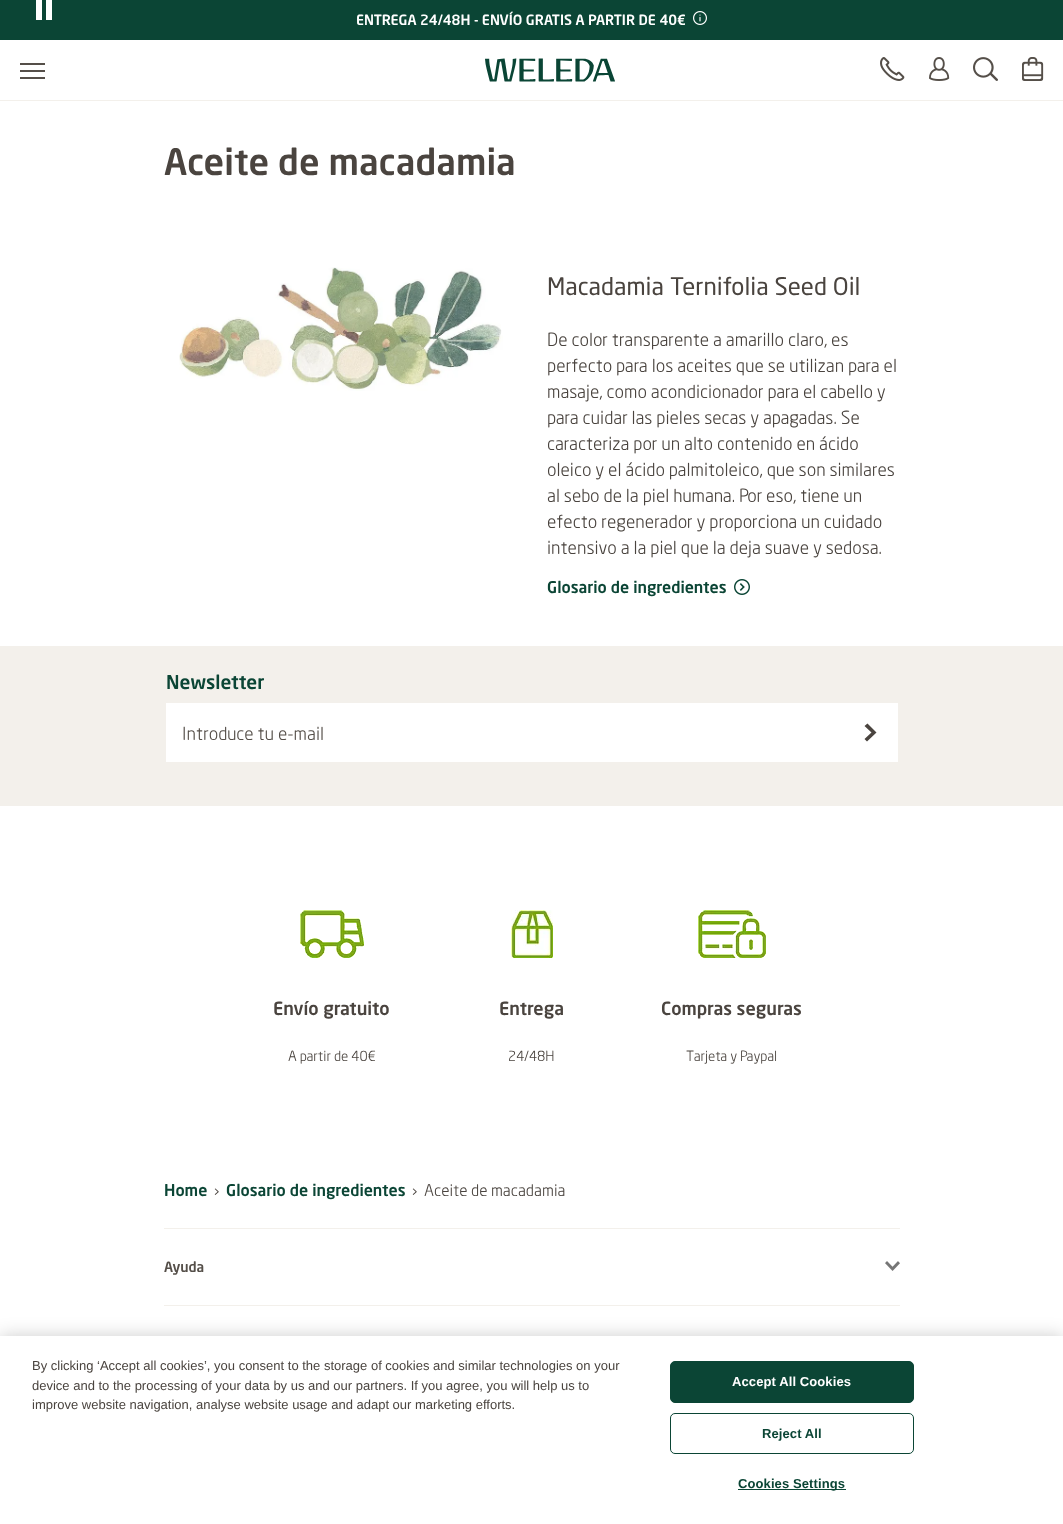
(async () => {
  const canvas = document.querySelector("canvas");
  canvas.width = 1063;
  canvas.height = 1524;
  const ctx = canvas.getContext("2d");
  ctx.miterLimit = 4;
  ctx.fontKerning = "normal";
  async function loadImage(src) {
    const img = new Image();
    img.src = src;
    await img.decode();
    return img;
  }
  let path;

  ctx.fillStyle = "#ffffff";
  ctx.fillRect(0, 0, 1063, 1524);
  for (const [x, y, w, h, color] of [
    [0, 0, 1063, 40, "#0b4535"],
    [46, 0, 6, 20, "#ffffff"],
    [36, 0, 6, 20, "#ffffff"],
  ]) {
    ctx.fillStyle = color;
    ctx.fillRect(x, y, w, h);
  }
  ctx.drawImage(await loadImage("img/1.png"), 693, 11, 14, 14);
  for (const [x, y, w, h, color] of [
    [0, 100, 1063, 1, "#f3f0eb"],
    [20, 70, 25, 2, "#554f49"],
    [20, 63, 25, 2, "#554f49"],
    [20, 77, 25, 2, "#554f49"],
  ]) {
    ctx.fillStyle = color;
    ctx.fillRect(x, y, w, h);
  }
  ctx.drawImage(await loadImage("img/2.png"), 485, 58, 130, 24);
  ctx.drawImage(await loadImage("img/3.png"), 880, 57, 25, 24);
  ctx.drawImage(await loadImage("img/4.png"), 929, 57, 21, 24);
  ctx.drawImage(await loadImage("img/5.png"), 973, 57, 25, 24);
  ctx.drawImage(await loadImage("img/6.png"), 1022, 57, 22, 24);
  ctx.drawImage(await loadImage("img/7.png"), 179, 267, 324, 124);
  ctx.drawImage(await loadImage("img/8.png"), 734, 579, 16, 16);
  ctx.fillStyle = "#f3f0eb";
  ctx.fillRect(0, 646, 1063, 160);
  ctx.fillStyle = "#ffffff";
  ctx.fillRect(166, 703, 732, 59);
  ctx.fillStyle = "#4a443f";
  path = new Path2D("M867.5 723.5L876.5 732.5L867 741.5L864.5 739L871.5 732.5L864.5 726Z");
  ctx.fill(path);
  ctx.drawImage(await loadImage("img/9.png"), 300, 910, 64, 48);
  ctx.drawImage(await loadImage("img/10.png"), 511, 910, 42, 48);
  ctx.drawImage(await loadImage("img/11.png"), 698, 910, 68, 48);
  ctx.fillStyle = "#f3f0eb";
  ctx.fillRect(164, 1228, 736, 1);
  ctx.fillRect(164, 1305, 736, 1);
  ctx.drawImage(await loadImage("img/12.png"), 885, 1261, 15, 10);
  ctx.fillStyle = "rgba(0, 0, 0, 0.2)";
  ctx.filter = "blur(9px)";
  ctx.beginPath();
  ctx.rect(0, 1336, 1063, 188);
  ctx.fill();
  ctx.filter = "none";
  ctx.fillStyle = "#ffffff";
  ctx.fillRect(0, 1336, 1063, 188);
  ctx.fillStyle = "#0b4535";
  ctx.beginPath();
  ctx.roundRect(670.5, 1361.5, 243, 41, 4.5);
  ctx.fill();
  ctx.strokeStyle = "#0b4535";
  ctx.stroke();
  ctx.beginPath();
  ctx.roundRect(670.5, 1413.5, 243, 40, 4.5);
  ctx.stroke();
  ctx.fillRect(738, 1489, 108, 1);
  ctx.font = "bold 14px 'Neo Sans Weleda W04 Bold'";
  ctx.fillStyle = "#ffffff";
  ctx.fillText("ENTREGA 24/48H - ENVÍO GRATIS A PARTIR DE 40€", 356, 25);
  ctx.font = "bold 36px 'Neo Sans Weleda W04 Bold'";
  ctx.fillStyle = "#4a443f";
  ctx.fillText("Aceite de macadamia", 164, 175);
  ctx.font = "500 24px 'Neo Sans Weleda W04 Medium'";
  ctx.fillText("Macadamia Ternifolia Seed Oil", 547, 295);
  ctx.font = "18px 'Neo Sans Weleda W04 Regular'";
  for (const [text, x, y] of [
    ["De color transparente a amarillo claro, es", 547, 346],
    ["perfecto para los aceites que se utilizan para el", 547, 372],
    ["masaje, como acondicionador para el cabello y", 547, 398],
    ["para cuidar las pieles secas y apagadas. Se", 547, 424],
    ["caracteriza por un alto contenido en ácido", 547, 450],
    ["oleico y el ácido palmitoleico, que son similares", 547, 476],
    ["al sebo de la piel humana. Por eso, tiene un", 547, 502],
    ["efecto regenerador y proporciona un cuidado", 547, 528],
    ["intensivo a la piel que la deja suave y sedosa.", 547, 554],
  ]) {
    ctx.fillText(text, x, y);
  }
  ctx.font = "bold 16px 'Neo Sans Weleda W04 Bold'";
  ctx.fillStyle = "#0b4535";
  ctx.fillText("Glosario de ingredientes", 547, 593);
  ctx.font = "bold 19px 'Neo Sans Weleda W04 Bold'";
  ctx.fillText("Newsletter", 166, 689);
  ctx.font = "18px 'Neo Sans Weleda W04 Regular'";
  ctx.fillStyle = "#554f49";
  ctx.fillText("Introduce tu e-mail", 182, 740);
  ctx.font = "bold 18px 'Neo Sans Weleda W04 Bold'";
  ctx.fillStyle = "#4a443f";
  ctx.fillText("Envío gratuito", 273, 1015);
  ctx.font = "14px 'Neo Sans Weleda W04 Regular'";
  ctx.fillText("A partir de 40€", 288, 1061);
  ctx.font = "bold 18px 'Neo Sans Weleda W04 Bold'";
  ctx.fillText("Entrega", 499, 1015);
  ctx.font = "14px 'Neo Sans Weleda W04 Regular'";
  ctx.fillText("24/48H", 508, 1061);
  ctx.font = "bold 18px 'Neo Sans Weleda W04 Bold'";
  ctx.fillText("Compras seguras", 661, 1015);
  ctx.font = "14px 'Neo Sans Weleda W04 Regular'";
  ctx.fillText("Tarjeta y Paypal", 686, 1061);
  ctx.font = "bold 16px 'Neo Sans Weleda W04 Bold'";
  ctx.fillStyle = "#0b4535";
  ctx.fillText("Home", 164, 1196);
  ctx.font = "16px 'Neo Sans Weleda W04 Regular'";
  ctx.fillStyle = "#4a443f";
  ctx.fillText("›", 214, 1196);
  ctx.font = "bold 16px 'Neo Sans Weleda W04 Bold'";
  ctx.fillStyle = "#0b4535";
  ctx.fillText("Glosario de ingredientes", 226, 1196);
  ctx.font = "16px 'Neo Sans Weleda W04 Regular'";
  ctx.fillStyle = "#4a443f";
  ctx.fillText("›", 412, 1196);
  ctx.fillText("Aceite de macadamia", 424, 1196);
  ctx.font = "bold 14px 'Neo Sans Weleda W04 Bold'";
  ctx.fillStyle = "#554f49";
  ctx.fillText("Ayuda", 164, 1272);
  ctx.font = "13px Liberation Sans";
  ctx.fillStyle = "#4a443f";
  for (const [text, x, y] of [
    ["By clicking ‘Accept all cookies’, you consent to the storage of cookies and similar technologies on your", 32, 1370],
    ["device and to the processing of your data by us and our partners. If you agree, you will help us to", 32, 1390],
    ["improve website navigation, analyse website usage and adapt our marketing efforts.", 32, 1409],
  ]) {
    ctx.fillText(text, x, y);
  }
  ctx.letterSpacing = "0.1px";
  ctx.font = "bold 13px Liberation Sans";
  ctx.fillStyle = "#ffffff";
  ctx.fillText("Accept All Cookies", 732, 1386);
  ctx.fillStyle = "#0b4535";
  ctx.fillText("Reject All", 762, 1438);
  ctx.fillText("Cookies Settings", 738, 1488);
})();
